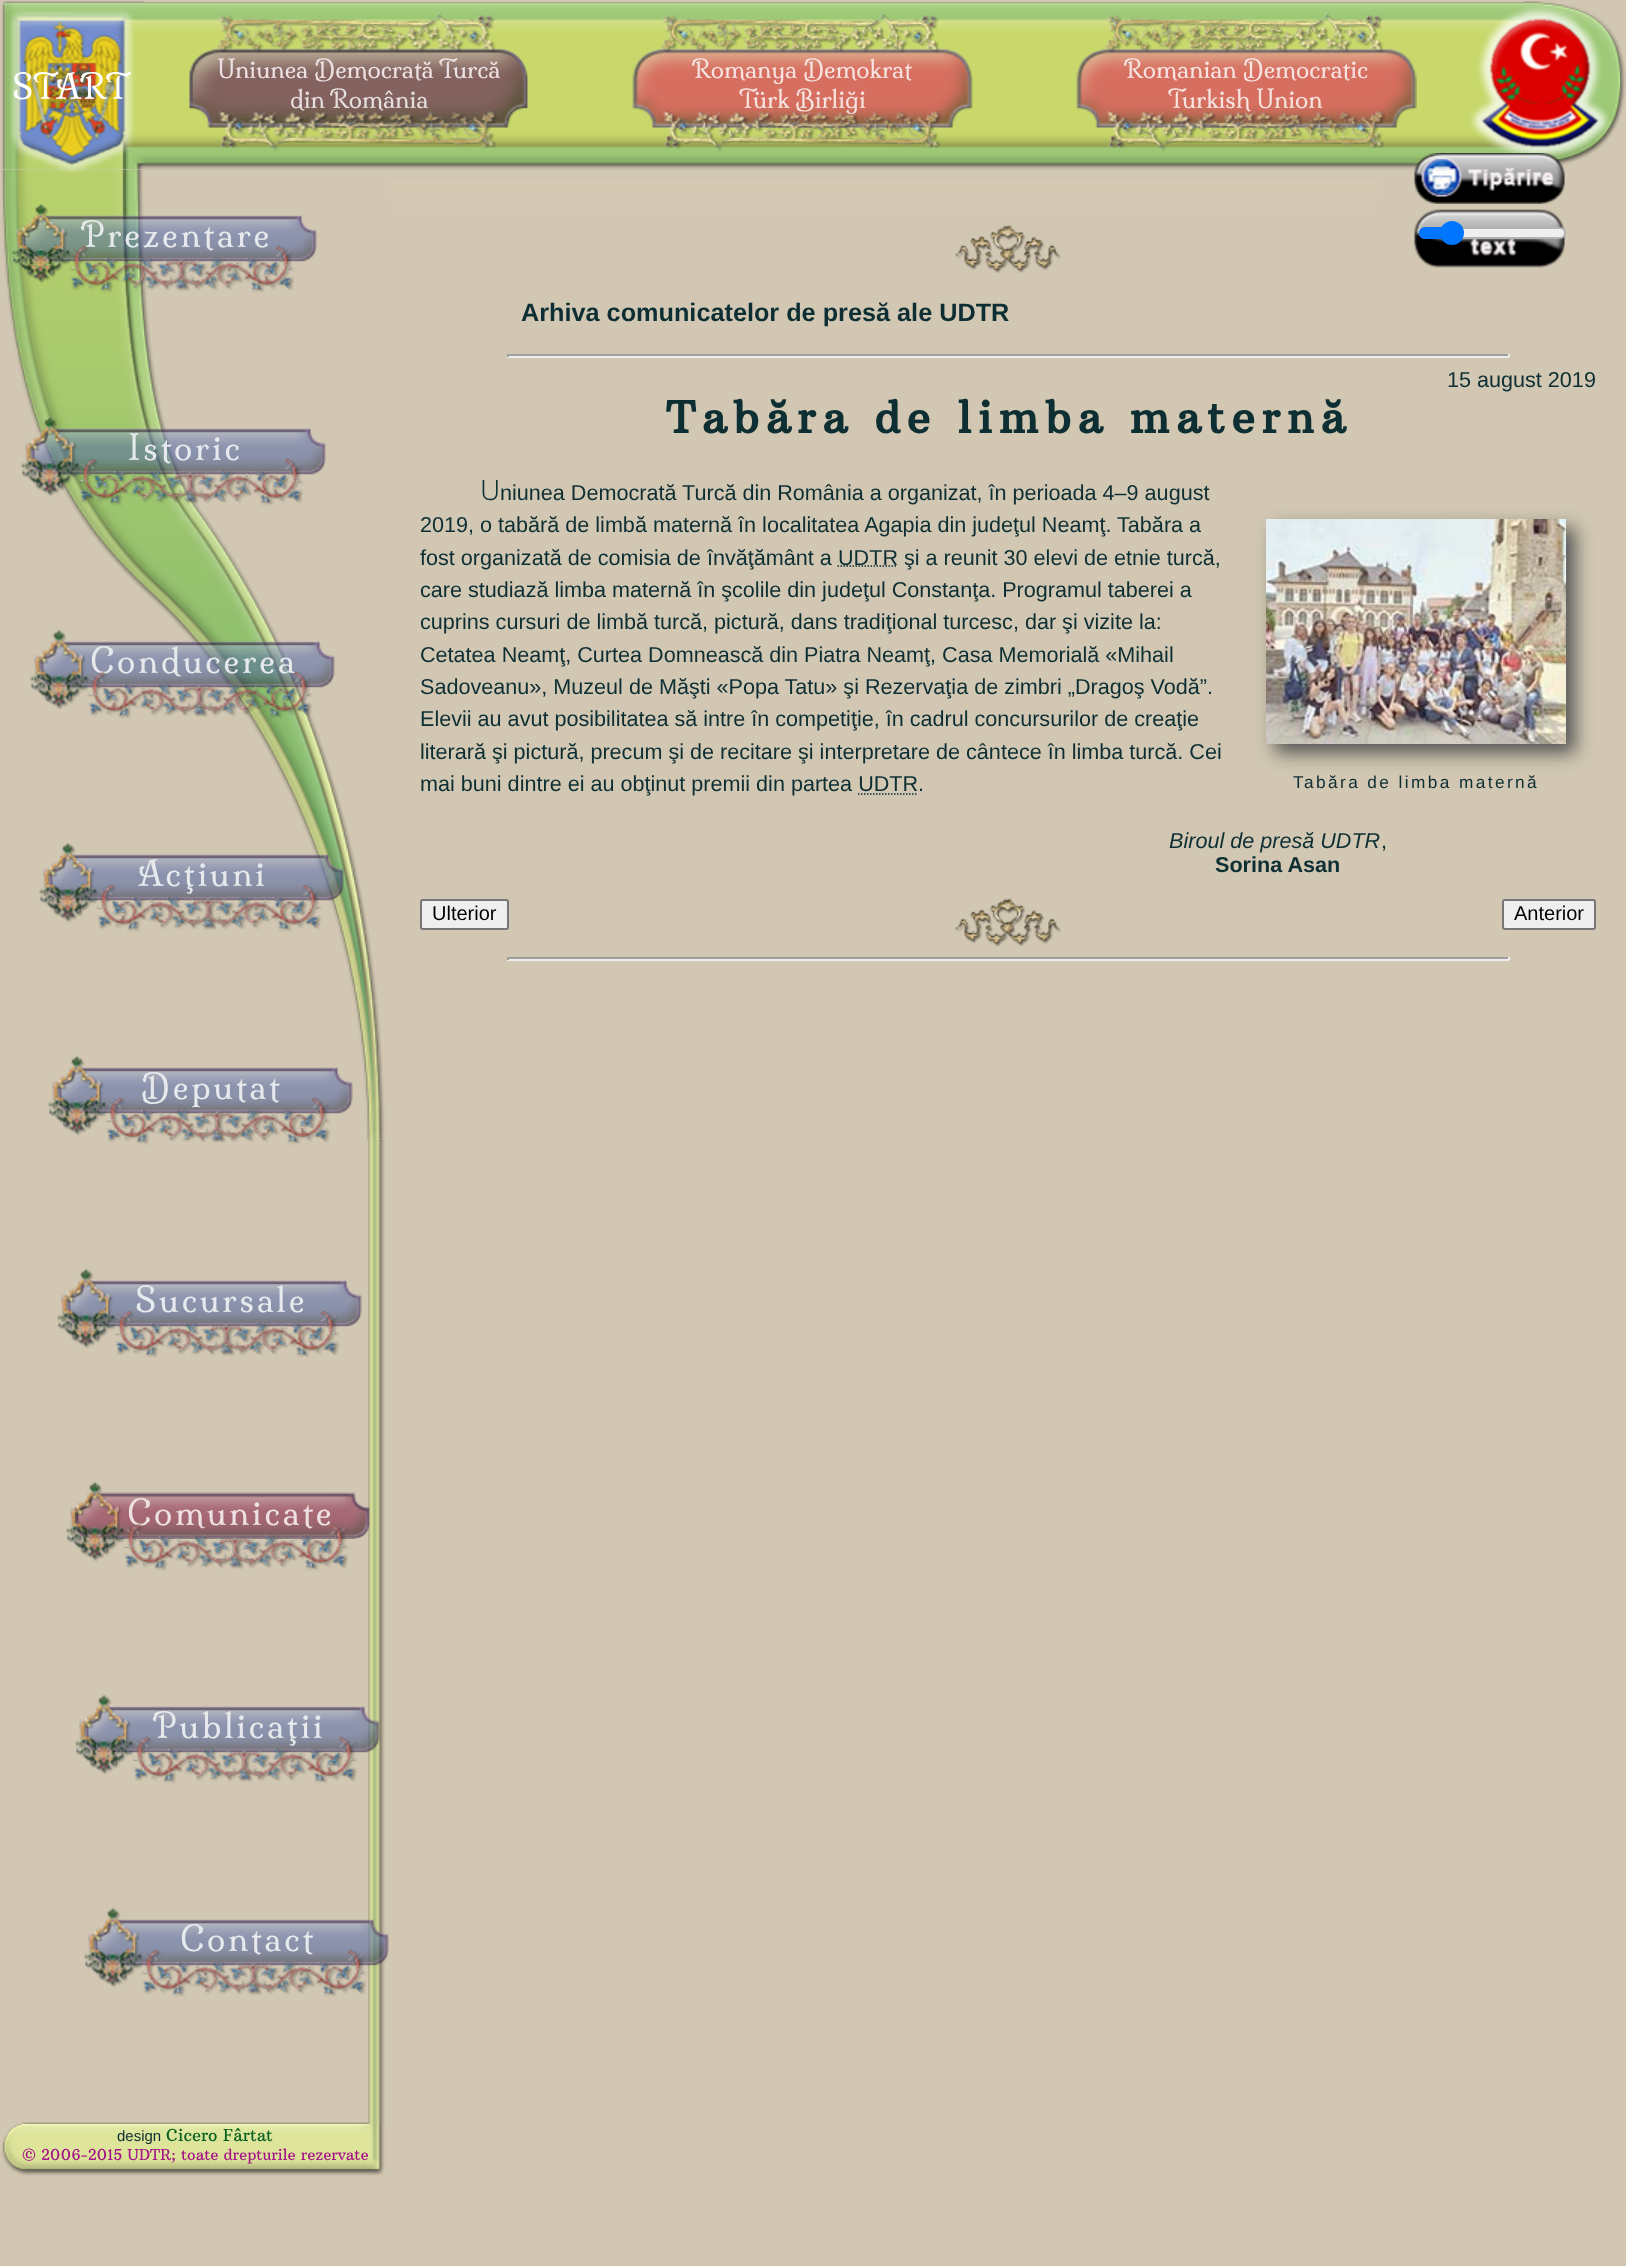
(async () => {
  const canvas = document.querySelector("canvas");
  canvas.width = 1626;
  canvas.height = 2266;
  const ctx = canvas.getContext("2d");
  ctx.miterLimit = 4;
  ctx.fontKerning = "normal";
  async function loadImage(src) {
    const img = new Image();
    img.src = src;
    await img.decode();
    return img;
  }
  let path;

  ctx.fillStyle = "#d1c7b2";
  ctx.fillRect(0, 0, 1626, 2266);
  ctx.drawImage(await loadImage("img/1.png"), 1, 1, 143, 169);
  ctx.drawImage(await loadImage("img/2.png"), 144, 2, 1380, 168);
  ctx.drawImage(await loadImage("img/3.png"), 1524, 1, 102, 165);
  ctx.drawImage(await loadImage("img/44.png"), 368, 1140, 17, 983);
  ctx.drawImage(await loadImage("img/14.png"), 1, 170, 384, 971);
  ctx.drawImage(await loadImage("img/4.png"), 9, 9, 126, 165);
  ctx.drawImage(await loadImage("img/5.png"), 189, 48, 339, 80);
  ctx.drawImage(await loadImage("img/6.png"), 217, 12, 279, 41);
  ctx.drawImage(await loadImage("img/7.png"), 218, 111, 280, 41);
  ctx.drawImage(await loadImage("img/8.png"), 632, 48, 341, 80);
  ctx.drawImage(await loadImage("img/9.png"), 661, 12, 279, 41);
  ctx.drawImage(await loadImage("img/11.png"), 1076, 48, 341, 80);
  ctx.drawImage(await loadImage("img/9.png"), 1105, 12, 279, 41);
  ctx.drawImage(await loadImage("img/13.png"), 1469, 6, 142, 153);
  ctx.drawImage(await loadImage("img/41.png"), 955, 225, 107, 48);
  ctx.drawImage(await loadImage("img/15.png"), 390, 180, 988, 57);
  ctx.drawImage(await loadImage("img/16.png"), 1414, 153, 151, 51);
  ctx.drawImage(await loadImage("img/17.png"), 1414, 209, 151, 59);
  ctx.fillStyle = "#efefef";
  ctx.beginPath();
  ctx.roundRect(1420, 228, 145, 10, 5);
  ctx.fill();
  ctx.strokeStyle = "#b2b2b2";
  ctx.lineWidth = 2;
  ctx.stroke();
  ctx.fillStyle = "#0075ff";
  ctx.beginPath();
  ctx.roundRect(1419, 227, 33, 12, [6, 0, 0, 6]);
  ctx.fill();
  ctx.beginPath();
  ctx.arc(1452, 233, 12, 0, Math.PI * 2);
  ctx.fill();
  ctx.drawImage(await loadImage("img/18.png"), 21, 214, 296, 48);
  ctx.drawImage(await loadImage("img/19.png"), 12, 204, 59, 80);
  ctx.drawImage(await loadImage("img/21.png"), 30, 427, 296, 48);
  ctx.drawImage(await loadImage("img/22.png"), 21, 416, 59, 81);
  ctx.drawImage(await loadImage("img/24.png"), 39, 640, 296, 48);
  ctx.drawImage(await loadImage("img/25.png"), 30, 629, 59, 81);
  ctx.drawImage(await loadImage("img/27.png"), 48, 854, 296, 47);
  ctx.drawImage(await loadImage("img/28.png"), 39, 842, 59, 81);
  ctx.drawImage(await loadImage("img/30.png"), 57, 1067, 296, 47);
  ctx.drawImage(await loadImage("img/31.png"), 48, 1055, 59, 81);
  ctx.drawImage(await loadImage("img/30.png"), 66, 1280, 296, 47);
  ctx.drawImage(await loadImage("img/28.png"), 57, 1268, 59, 81);
  ctx.drawImage(await loadImage("img/34.png"), 75, 1492, 295, 47);
  ctx.drawImage(await loadImage("img/35.png"), 66, 1481, 59, 81);
  ctx.drawImage(await loadImage("img/37.png"), 84, 1706, 296, 47);
  ctx.drawImage(await loadImage("img/28.png"), 75, 1694, 59, 81);
  ctx.drawImage(await loadImage("img/39.png"), 93, 1919, 296, 47);
  ctx.drawImage(await loadImage("img/28.png"), 84, 1907, 59, 81);
  for (const [x, y, w, h, color] of [
    [507, 354, 1002, 2, "#9f9f9f"],
    [1508, 354, 2, 3, "#eeeeee"],
    [507, 356, 1002, 2, "#eeeeee"],
    [507, 354, 2, 3, "#9f9f9f"],
  ]) {
    ctx.fillStyle = color;
    ctx.fillRect(x, y, w, h);
  }
  path = new Path2D("M837.5 566H897.5");
  ctx.strokeStyle = "#0d2e33";
  ctx.lineWidth = 1.5;
  ctx.setLineDash([1.5, 1.5]);
  ctx.stroke(path);
  path = new Path2D("M858 794H918");
  ctx.stroke(path);
  ctx.fillStyle = "#555555";
  ctx.filter = "blur(9px)";
  ctx.beginPath();
  ctx.rect(1275, 528, 300, 225);
  ctx.fill();
  ctx.filter = "none";
  ctx.drawImage(await loadImage("img/42.png"), 1266, 519, 300, 225);
  ctx.fillStyle = "#efefef";
  ctx.beginPath();
  ctx.roundRect(421, 900, 87, 29, 2);
  ctx.fill();
  ctx.strokeStyle = "#767676";
  ctx.lineWidth = 2;
  ctx.setLineDash([]);
  ctx.stroke();
  ctx.drawImage(await loadImage("img/43.png"), 955, 898, 107, 49);
  ctx.beginPath();
  ctx.roundRect(1503, 900, 92, 29, 2);
  ctx.fill();
  ctx.stroke();
  for (const [x, y, w, h, color] of [
    [507, 957, 1002, 2, "#9f9f9f"],
    [1508, 957, 2, 3, "#eeeeee"],
    [507, 959, 1002, 2, "#eeeeee"],
    [507, 957, 2, 3, "#9f9f9f"],
  ]) {
    ctx.fillStyle = color;
    ctx.fillRect(x, y, w, h);
  }
  ctx.drawImage(await loadImage("img/45.png"), 1, 2122, 384, 54);
  ctx.font = "33px Milonga";
  ctx.fillStyle = "#ffffff";
  ctx.fillText("START", 12, 99);
  ctx.font = "24px Milonga";
  ctx.fillStyle = "#ede1e3";
  ctx.fillText("Uniunea Democrată Turcă", 217, 78);
  ctx.fillStyle = "#e6dfdf";
  ctx.fillText("din România", 290, 108);
  ctx.fillStyle = "#f7e3e0";
  ctx.fillText("Romanya Demokrat", 692, 78);
  ctx.fillText("Türk Birliği", 739, 108);
  ctx.drawImage(await loadImage("img/10.png"), 663, 111, 279, 41);
  ctx.fillText("Romanian Democratic", 1124, 78);
  ctx.fillText("Turkish Union", 1168, 108);
  ctx.drawImage(await loadImage("img/12.png"), 1107, 111, 279, 41);
  ctx.letterSpacing = "3px";
  ctx.font = "33px Milonga";
  ctx.fillStyle = "#e7eaec";
  ctx.fillText("Prezentare", 81, 247);
  ctx.drawImage(await loadImage("img/20.png"), 69, 245, 226, 48);
  ctx.fillText("Istoric", 128, 460);
  ctx.drawImage(await loadImage("img/23.png"), 78, 458, 226, 48);
  ctx.fillText("Conducerea", 90, 673);
  ctx.drawImage(await loadImage("img/26.png"), 87, 671, 226, 48);
  ctx.fillText("Acţiuni", 138, 886);
  ctx.drawImage(await loadImage("img/29.png"), 96, 884, 226, 48);
  ctx.fillText("Deputat", 141, 1099);
  ctx.drawImage(await loadImage("img/32.png"), 105, 1097, 226, 48);
  ctx.fillText("Sucursale", 135, 1312);
  ctx.drawImage(await loadImage("img/33.png"), 114, 1310, 226, 48);
  ctx.fillStyle = "#ede1e3";
  ctx.fillText("Comunicate", 127, 1525);
  ctx.drawImage(await loadImage("img/36.png"), 123, 1523, 226, 48);
  ctx.fillStyle = "#e7eaec";
  ctx.fillText("Publicaţii", 153, 1738);
  ctx.drawImage(await loadImage("img/38.png"), 132, 1736, 226, 48);
  ctx.fillText("Contact", 180, 1951);
  ctx.drawImage(await loadImage("img/40.png"), 141, 1949, 226, 48);
  ctx.letterSpacing = "0px";
  ctx.font = "bold 25.25px Liberation Sans";
  ctx.fillStyle = "#0d2e33";
  ctx.fillText("Arhiva comunicatelor de presă ale UDTR", 521, 321);
  ctx.font = "21.6px Liberation Sans";
  ctx.fillText("15 august 2019", 1447, 387);
  ctx.letterSpacing = "6.5px";
  ctx.font = "bold 43.25px Arbutus Slab";
  ctx.fillText("Tabăra de limba maternă", 666, 433);
  ctx.letterSpacing = "0px";
  ctx.font = "300 28px Noto Sans";
  ctx.fillText("U", 480, 500);
  ctx.font = "21.6px Liberation Sans";
  for (const [text, x, y] of [
    ["niunea Democrată Turcă din România a organizat, în perioada 4–9 august", 500, 500],
    ["2019, o tabără de limbă maternă în localitatea Agapia din judeţul Neamţ. Tabăra a", 420, 532],
    ["fost organizată de comisia de învăţământ a", 420, 565],
    ["UDTR şi a reunit 30 elevi de etnie turcă,", 838, 565],
    ["care studiază limba maternă în şcolile din judeţul Constanţa. Programul taberei a", 420, 597],
    ["cuprins cursuri de limbă turcă, pictură, dans tradiţional turcesc, dar şi vizite la:", 420, 629],
    ["Cetatea Neamţ, Curtea Domnească din Piatra Neamţ, Casa Memorială «Mihail", 420, 662],
    ["Sadoveanu», Muzeul de Măşti «Popa Tatu» şi Rezervaţia de zimbri „Dragoş Vodă”.", 420, 694],
    ["Elevii au avut posibilitatea să intre în competiţie, în cadrul concursurilor de creaţie", 420, 726],
    ["literară şi pictură, precum şi de recitare şi interpretare de cântece în limba turcă. Cei", 420, 759],
    ["mai buni dintre ei au obţinut premii din partea UDTR.", 420, 791],
  ]) {
    ctx.fillText(text, x, y);
  }
  ctx.letterSpacing = "2.4px";
  ctx.font = "17.25px Liberation Sans";
  ctx.fillText("Tabăra de limba maternă", 1293, 788);
  ctx.letterSpacing = "0px";
  ctx.font = "italic 21.6px Liberation Sans";
  ctx.fillText("Biroul de presă UDTR", 1169, 848);
  ctx.font = "21.6px Liberation Sans";
  ctx.fillText(",", 1381, 848);
  ctx.font = "bold 21.6px Liberation Sans";
  ctx.fillText("Sorina Asan", 1215, 872);
  ctx.font = "20px Liberation Sans";
  ctx.fillStyle = "#000000";
  ctx.fillText("Ulterior", 432, 920);
  ctx.fillText("Anterior", 1514, 920);
  ctx.font = "15px Liberation Sans";
  ctx.fillStyle = "#0d2e33";
  ctx.fillText("design", 117, 2141);
  ctx.font = "16.5px Arbutus Slab";
  ctx.fillStyle = "#086121";
  ctx.fillText("Cicero Fârtat", 166, 2141);
  ctx.font = "15px Arbutus Slab";
  ctx.fillStyle = "#a41387";
  ctx.fillText("© 2006-2015 UDTR; toate drepturile rezervate", 22, 2160);
})();
